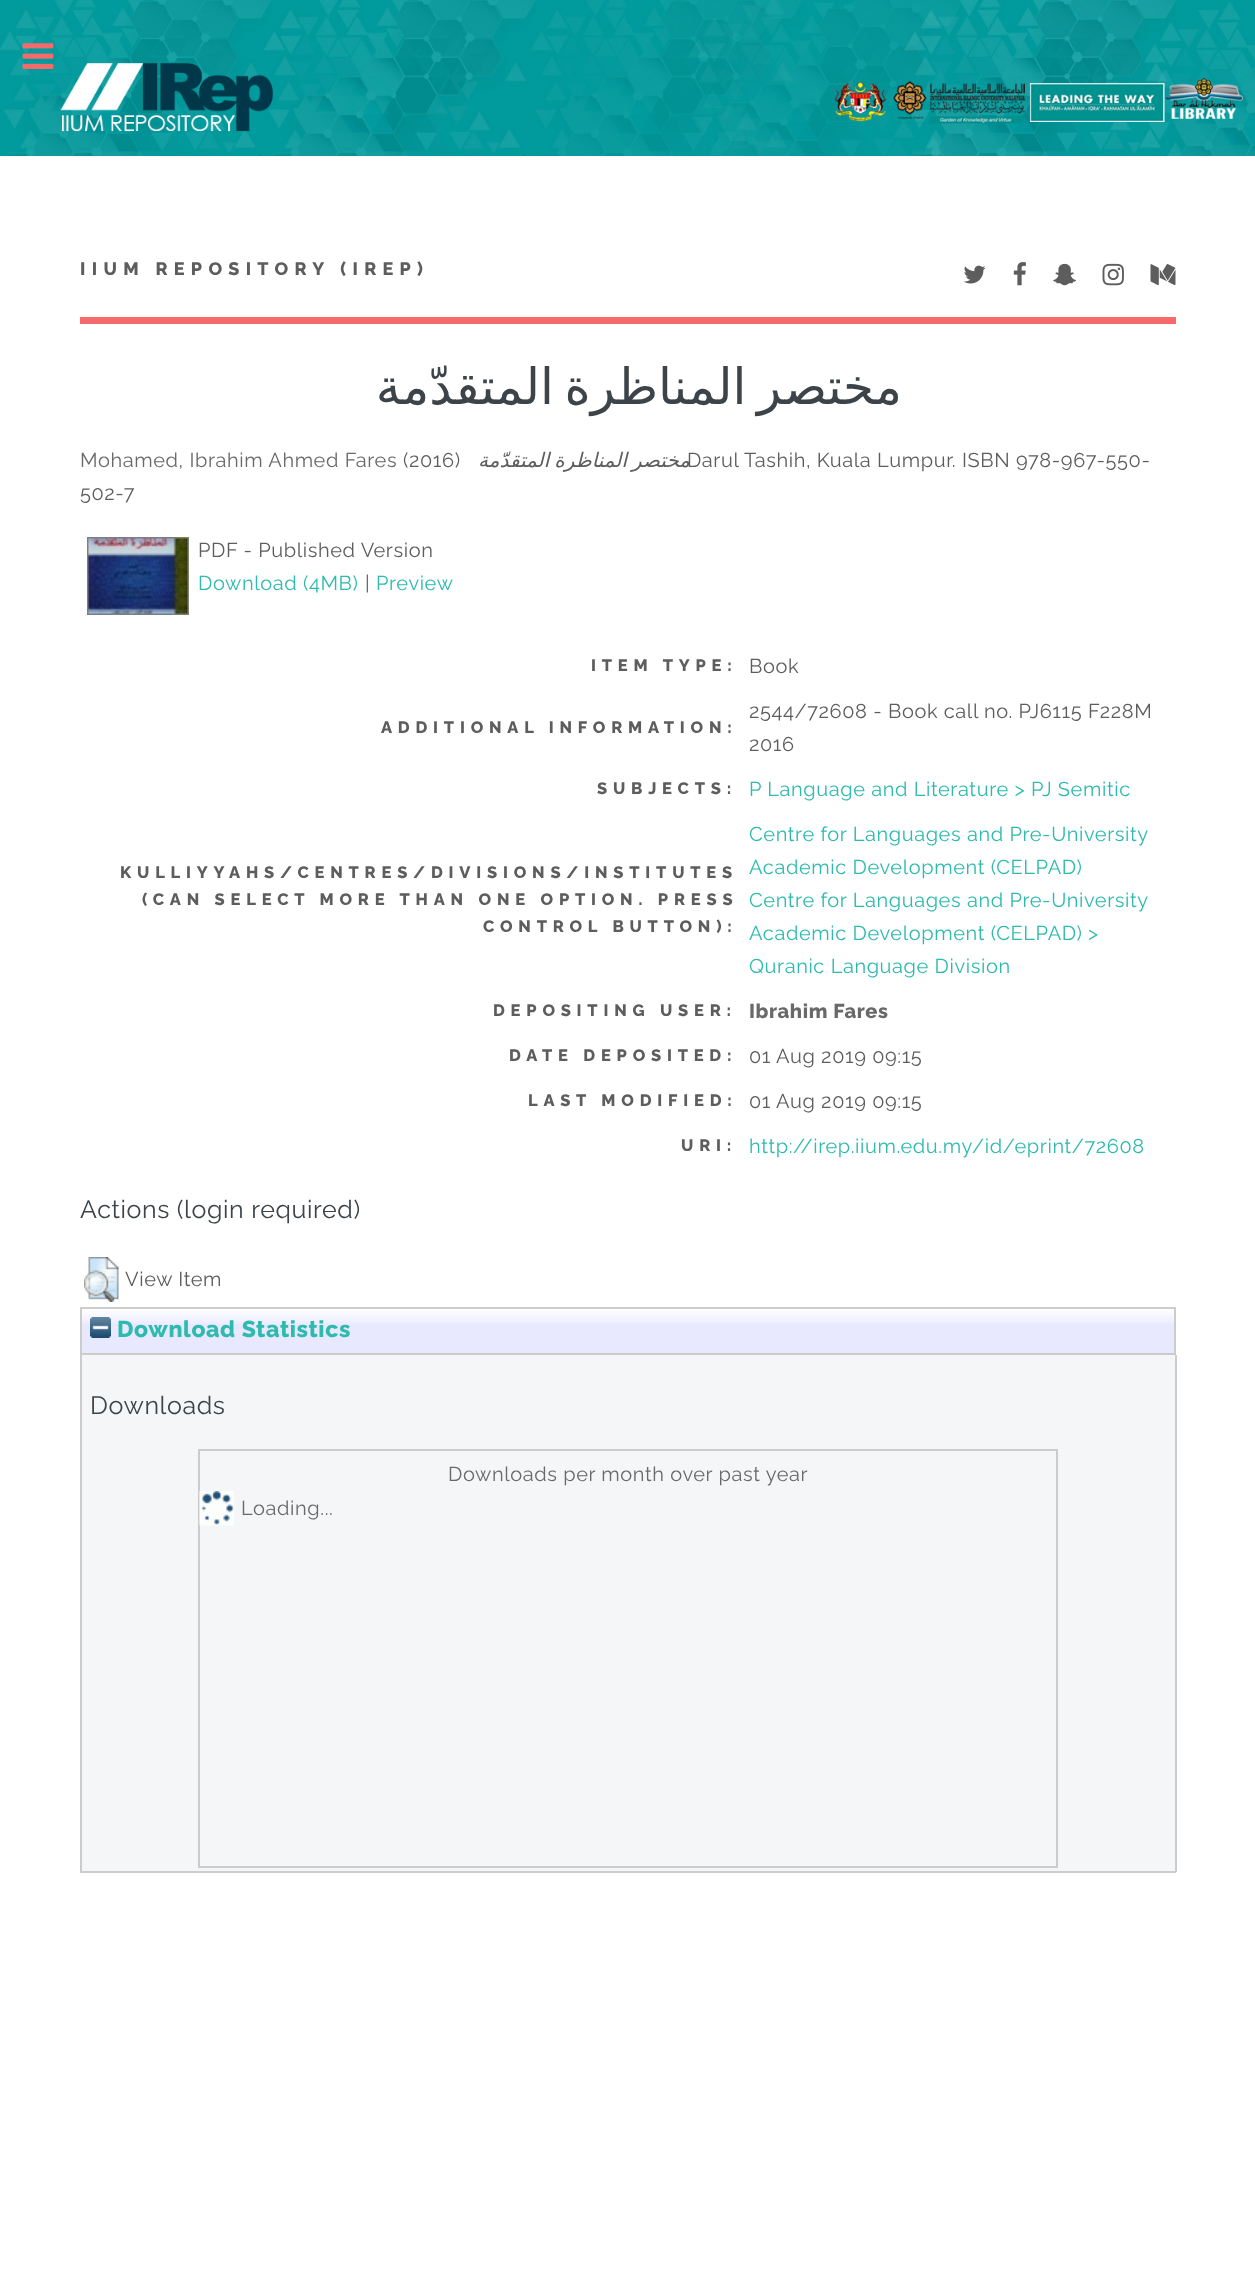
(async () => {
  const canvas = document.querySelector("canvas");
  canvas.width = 1255;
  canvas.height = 2270;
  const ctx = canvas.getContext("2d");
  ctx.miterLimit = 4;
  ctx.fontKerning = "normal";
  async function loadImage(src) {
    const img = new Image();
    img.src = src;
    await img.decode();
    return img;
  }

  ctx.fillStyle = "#ffffff";
  ctx.fillRect(0, 0, 1255, 2270);
  ctx.drawImage(await loadImage("img/1.png"), 0, 0, 1255, 156);
  ctx.drawImage(await loadImage("img/2.png"), 22, 43, 32, 26);
  ctx.fillStyle = "#f56a6a";
  ctx.fillRect(80, 317, 1096, 7);
  ctx.drawImage(await loadImage("img/3.png"), 963, 265, 23, 19);
  ctx.drawImage(await loadImage("img/4.png"), 1013, 262, 13, 24);
  ctx.drawImage(await loadImage("img/5.png"), 1053, 263, 23, 23);
  ctx.drawImage(await loadImage("img/6.png"), 1102, 263, 22, 23);
  ctx.drawImage(await loadImage("img/7.png"), 1150, 264, 26, 22);
  ctx.drawImage(await loadImage("img/8.png"), 87, 537, 102, 78);
  ctx.drawImage(await loadImage("img/9.png"), 84, 1257, 35, 45);
  ctx.fillStyle = "#e8e8ff";
  ctx.fillRect(82, 1309, 1092, 44);
  ctx.drawImage(await loadImage("img/10.png"), 82, 1309, 1092, 15);
  ctx.strokeStyle = "#cccccc";
  ctx.lineWidth = 2;
  ctx.strokeRect(81, 1308, 1094, 46);
  ctx.drawImage(await loadImage("img/11.png"), 90, 1317, 21, 21);
  for (const [x, y, w, h, color] of [
    [82, 1355, 1093, 516, "#f5f6f7"],
    [1175, 1355, 2, 517, "#cccccc"],
    [80, 1871, 1096, 2, "#cccccc"],
    [80, 1355, 2, 517, "#cccccc"],
  ]) {
    ctx.fillStyle = color;
    ctx.fillRect(x, y, w, h);
  }
  ctx.strokeRect(199, 1450, 858, 417);
  ctx.drawImage(await loadImage("img/12.png"), 199, 1491, 35, 35);
  ctx.letterSpacing = "6.3px";
  ctx.font = "800 18px Raleway";
  ctx.fillStyle = "#5d5d5d";
  ctx.fillText("IIUM REPOSITORY (IREP)", 80, 275);
  ctx.letterSpacing = "0.6px";
  ctx.wordSpacing = "-6px";
  ctx.direction = "rtl";
  ctx.font = "50px DejaVu Sans";
  ctx.fillStyle = "#3d4449";
  ctx.fillText("مختصر المناظرة المتقدّمة", 902, 404);
  ctx.wordSpacing = "0px";
  ctx.direction = "ltr";
  ctx.font = "20px Raleway";
  ctx.fillStyle = "#696969";
  ctx.fillText("Mohamed, Ibrahim Ahmed Fares", 80, 467);
  ctx.fillStyle = "#5d5d5d";
  ctx.fillText("(2016)", 403, 467);
  ctx.wordSpacing = "-2px";
  ctx.direction = "rtl";
  ctx.font = "italic 20px DejaVu Sans";
  ctx.fillText("مختصر المناظرة المتقدّمة", 690, 467);
  ctx.wordSpacing = "0px";
  ctx.direction = "ltr";
  ctx.font = "20px Raleway";
  for (const [text, x, y] of [
    ["Darul Tashih, Kuala Lumpur. ISBN 978-967-550-", 687, 467],
    ["502-7", 80, 500],
    ["PDF - Published Version", 198, 557],
  ]) {
    ctx.fillText(text, x, y);
  }
  ctx.fillStyle = "#2ebaae";
  ctx.fillText("Download (4MB)", 198, 590);
  ctx.fillStyle = "#5d5d5d";
  ctx.fillText("|", 365, 590);
  ctx.fillStyle = "#2ebaae";
  ctx.fillText("Preview", 376, 590);
  ctx.letterSpacing = "5.8px";
  ctx.font = "800 16.5px Raleway";
  ctx.fillStyle = "#5d5d5d";
  ctx.fillText("ITEM TYPE:", 591, 671);
  ctx.letterSpacing = "0.6px";
  ctx.font = "20px Raleway";
  ctx.fillText("Book", 749, 673);
  ctx.letterSpacing = "5.8px";
  ctx.font = "800 16.5px Raleway";
  ctx.fillText("ADDITIONAL INFORMATION:", 381, 733);
  ctx.letterSpacing = "0.6px";
  ctx.font = "20px Raleway";
  ctx.fillText("2544/72608 - Book call no. PJ6115 F228M", 749, 718);
  ctx.fillText("2016", 749, 751);
  ctx.letterSpacing = "5.8px";
  ctx.font = "800 16.5px Raleway";
  ctx.fillText("SUBJECTS:", 597, 794);
  ctx.letterSpacing = "0.6px";
  ctx.font = "20px Raleway";
  ctx.fillStyle = "#2ebaae";
  ctx.fillText("P Language and Literature > PJ Semitic", 749, 796);
  ctx.letterSpacing = "5.8px";
  ctx.font = "800 16.5px Raleway";
  ctx.fillStyle = "#5d5d5d";
  for (const [text, x, y] of [
    ["KULLIYYAHS/CENTRES/DIVISIONS/INSTITUTES", 120, 878],
    ["(CAN SELECT MORE THAN ONE OPTION. PRESS", 142, 905],
    ["CONTROL BUTTON):", 483, 932],
  ]) {
    ctx.fillText(text, x, y);
  }
  ctx.letterSpacing = "0.6px";
  ctx.font = "20px Raleway";
  ctx.fillStyle = "#2ebaae";
  for (const [text, x, y] of [
    ["Centre for Languages and Pre-University", 749, 841],
    ["Academic Development (CELPAD)", 749, 874],
    ["Centre for Languages and Pre-University", 749, 907],
    ["Academic Development (CELPAD) >", 749, 940],
    ["Quranic Language Division", 749, 973],
  ]) {
    ctx.fillText(text, x, y);
  }
  ctx.letterSpacing = "5.8px";
  ctx.font = "800 16.5px Raleway";
  ctx.fillStyle = "#5d5d5d";
  ctx.fillText("DEPOSITING USER:", 493, 1016);
  ctx.letterSpacing = "0.6px";
  ctx.font = "800 20px Raleway";
  ctx.fillStyle = "#696969";
  ctx.fillText("Ibrahim Fares", 749, 1018);
  ctx.letterSpacing = "5.8px";
  ctx.font = "800 16.5px Raleway";
  ctx.fillStyle = "#5d5d5d";
  ctx.fillText("DATE DEPOSITED:", 509, 1061);
  ctx.letterSpacing = "0.6px";
  ctx.font = "20px Raleway";
  ctx.fillText("01 Aug 2019 09:15", 749, 1063);
  ctx.letterSpacing = "5.8px";
  ctx.font = "800 16.5px Raleway";
  ctx.fillText("LAST MODIFIED:", 528, 1106);
  ctx.letterSpacing = "0.6px";
  ctx.font = "20px Raleway";
  ctx.fillText("01 Aug 2019 09:15", 749, 1108);
  ctx.letterSpacing = "5.8px";
  ctx.font = "800 16.5px Raleway";
  ctx.fillText("URI:", 681, 1151);
  ctx.letterSpacing = "0.6px";
  ctx.font = "20px Raleway";
  ctx.fillStyle = "#2ebaae";
  ctx.fillText("http://irep.iium.edu.my/id/eprint/72608", 749, 1153);
  ctx.font = "25px Raleway";
  ctx.fillStyle = "#3d4449";
  ctx.fillText("Actions (login required)", 80, 1218);
  ctx.font = "20px Raleway";
  ctx.fillStyle = "#5d5d5d";
  ctx.fillText("View Item", 125, 1286);
  ctx.font = "800 23px Raleway";
  ctx.fillStyle = "#2ebaae";
  ctx.fillText("Download Statistics", 117, 1337);
  ctx.font = "25px Raleway";
  ctx.fillStyle = "#3d4449";
  ctx.fillText("Downloads", 90, 1414);
  ctx.font = "20px Raleway";
  ctx.fillStyle = "#696969";
  ctx.fillText("Downloads per month over past year", 448, 1481);
  ctx.fillText("Loading...", 241, 1515);
})();
